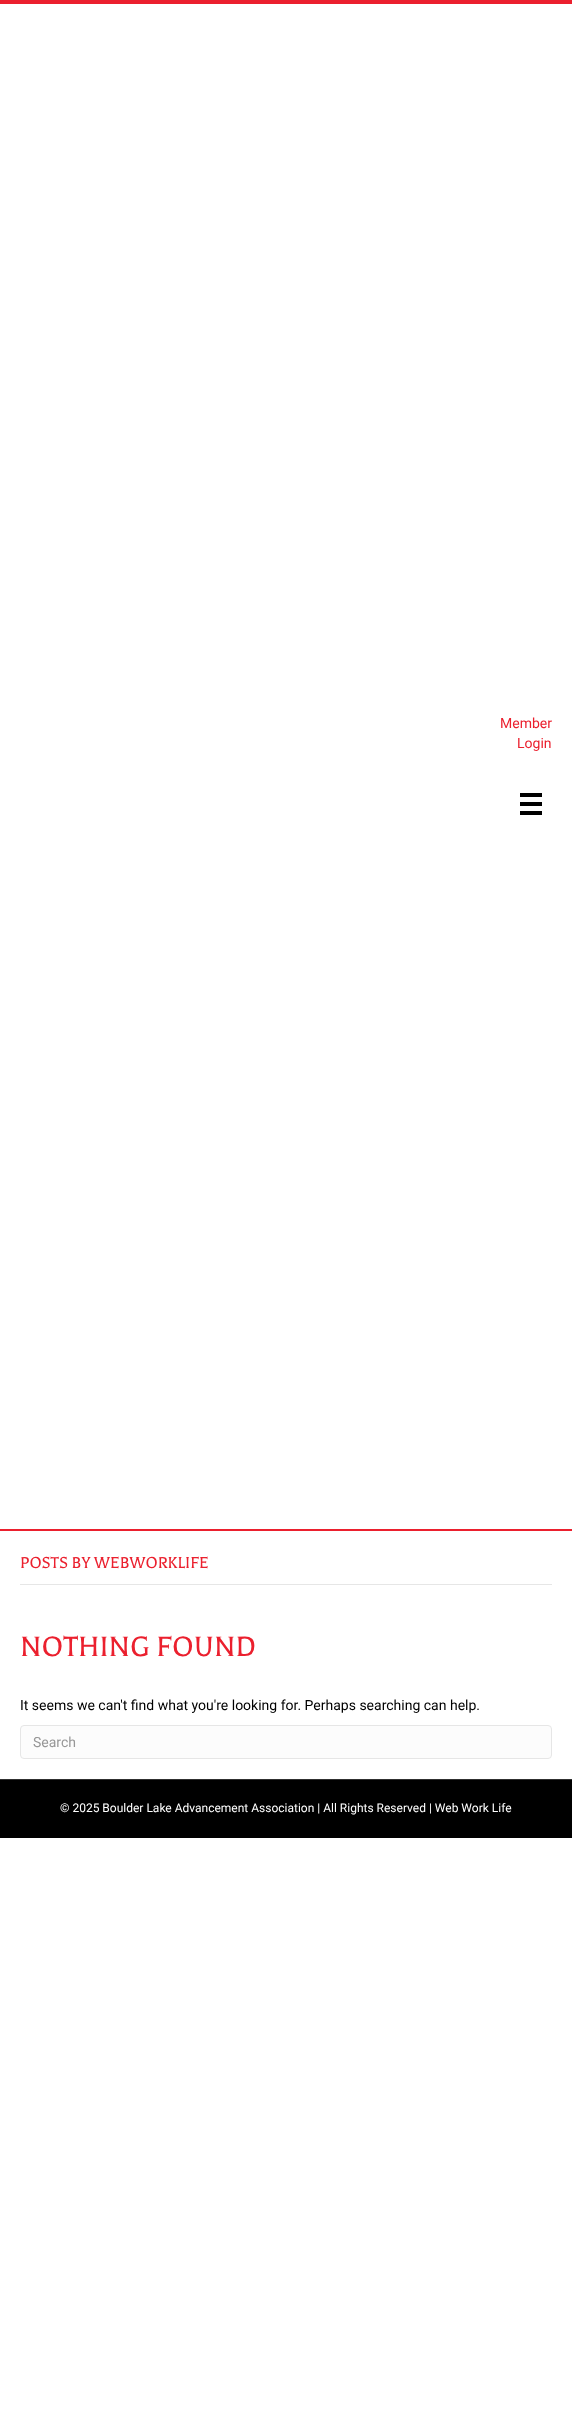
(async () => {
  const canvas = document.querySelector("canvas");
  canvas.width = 572;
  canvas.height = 2425;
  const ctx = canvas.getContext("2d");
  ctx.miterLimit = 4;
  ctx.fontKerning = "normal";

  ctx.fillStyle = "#ffffff";
  ctx.fillRect(0, 0, 572, 2425);
  for (const [x, y, w, h, color] of [
    [0, 0, 572, 4, "#eb202e"],
    [0, 1529, 572, 2, "#eb202e"],
    [520, 793, 22, 4, "#000000"],
    [520, 802, 22, 4, "#000000"],
    [520, 811, 22, 4, "#000000"],
    [20, 1584, 532, 1, "#e6e6e6"],
  ]) {
    ctx.fillStyle = color;
    ctx.fillRect(x, y, w, h);
  }
  ctx.fillStyle = "#fcfcfc";
  ctx.beginPath();
  ctx.roundRect(20.5, 1725.5, 531, 33, 3.5);
  ctx.fill();
  ctx.strokeStyle = "#e6e6e6";
  ctx.stroke();
  ctx.fillStyle = "#000000";
  ctx.fillRect(0, 1780, 572, 58);
  ctx.fillStyle = "#303030";
  ctx.fillRect(0, 1779, 572, 1);
  ctx.font = "14px Roboto";
  ctx.fillStyle = "#eb202e";
  ctx.fillText("Member", 500, 728);
  ctx.fillText("Login", 517, 748);
  ctx.font = "18px Balthazar";
  ctx.fillText("POSTS BY WEBWORKLIFE", 20, 1568);
  ctx.font = "32px Balthazar";
  ctx.fillText("NOTHING FOUND", 20, 1656);
  ctx.font = "14px Roboto";
  ctx.fillStyle = "#000000";
  ctx.fillText("It seems we can't find what you're looking for. Perhaps searching can help.", 20, 1710);
  ctx.fillStyle = "#979797";
  ctx.fillText("Search", 33, 1747);
  ctx.font = "12px Roboto";
  ctx.fillStyle = "#ffffff";
  ctx.fillText("© 2025 Boulder Lake Advancement Association | All Rights Reserved | Web Work Life", 60, 1812);
})();
